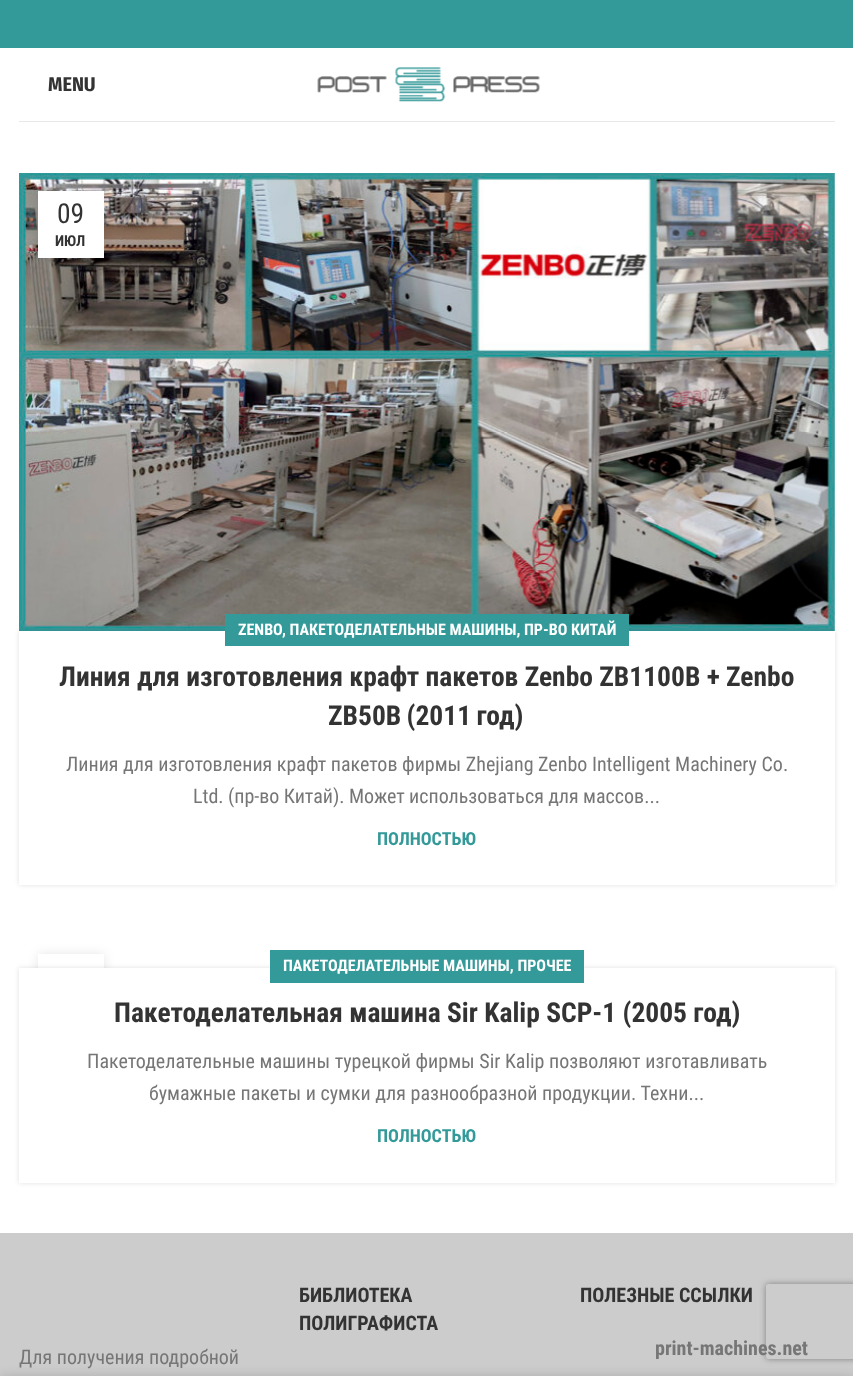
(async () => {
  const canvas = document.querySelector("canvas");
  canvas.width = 853;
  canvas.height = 1376;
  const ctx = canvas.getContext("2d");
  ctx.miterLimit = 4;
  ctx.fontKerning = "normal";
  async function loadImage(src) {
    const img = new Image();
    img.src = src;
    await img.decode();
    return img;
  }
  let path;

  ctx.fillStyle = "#ffffff";
  ctx.fillRect(0, 0, 853, 1376);
  ctx.fillStyle = "#339999";
  ctx.fillRect(0, 0, 853, 48);
  ctx.fillStyle = "#e8e8e8";
  ctx.fillRect(19, 121, 816, 1);
  ctx.drawImage(await loadImage("img/1.png"), 317, 67, 223, 35);
  ctx.drawImage(await loadImage("img/2.png"), 19, 173, 816, 458);
  ctx.fillStyle = "rgba(0, 0, 0, 0.1)";
  ctx.filter = "blur(5.5px)";
  ctx.beginPath();
  ctx.rect(38, 191, 66, 67);
  ctx.fill();
  ctx.filter = "none";
  ctx.fillStyle = "#ffffff";
  ctx.fillRect(38, 191, 66, 67);
  ctx.fillStyle = "rgba(0, 0, 0, 0.12)";
  ctx.filter = "blur(2.5px)";
  ctx.beginPath();
  ctx.rect(19, 631, 816, 254);
  ctx.fill();
  ctx.filter = "none";
  ctx.fillStyle = "#ffffff";
  ctx.fillRect(19, 631, 816, 254);
  ctx.fillStyle = "#339999";
  ctx.fillRect(225, 614, 404, 32);
  ctx.fillStyle = "rgba(0, 0, 0, 0.1)";
  ctx.filter = "blur(5.5px)";
  ctx.beginPath();
  ctx.rect(38, 954, 66, 66);
  ctx.fill();
  ctx.filter = "none";
  ctx.fillStyle = "#ffffff";
  ctx.fillRect(38, 954, 66, 14);
  ctx.fillStyle = "rgba(0, 0, 0, 0.12)";
  ctx.filter = "blur(2.5px)";
  ctx.beginPath();
  ctx.rect(19, 968, 816, 215);
  ctx.fill();
  ctx.filter = "none";
  for (const [x, y, w, h, color] of [
    [19, 968, 816, 215, "#ffffff"],
    [270, 950, 314, 33, "#339999"],
    [0, 1233, 853, 143, "#cccccc"],
  ]) {
    ctx.fillStyle = color;
    ctx.fillRect(x, y, w, h);
  }
  ctx.save();
  path = new Path2D("M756 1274H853V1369H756ZM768.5 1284H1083.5C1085 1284 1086 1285 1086 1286.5V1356.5C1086 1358 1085 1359 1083.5 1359H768.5C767 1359 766 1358 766 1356.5V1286.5C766 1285 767 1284 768.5 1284Z");
  ctx.clip(path, "evenodd");
  ctx.fillStyle = "#808080";
  ctx.filter = "blur(3px)";
  ctx.beginPath();
  ctx.roundRect(766, 1284, 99, 75, 2.5);
  ctx.fill();
  ctx.filter = "none";
  ctx.restore();
  ctx.fillStyle = "rgba(0, 0, 0, 0.14)";
  ctx.filter = "blur(5.5px)";
  ctx.beginPath();
  ctx.rect(0, 1376, 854, 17);
  ctx.fill();
  ctx.filter = "none";
  ctx.font = "bold 20px Fira Sans Condensed";
  ctx.fillStyle = "#333333";
  ctx.fillText("MENU", 48, 91);
  ctx.font = "27.5px Roboto Condensed";
  ctx.fillText("09", 57, 223);
  ctx.font = "bold 15px Roboto Condensed";
  ctx.fillText("ИЮЛ", 55, 246);
  ctx.font = "bold 16px Roboto Condensed";
  ctx.fillStyle = "#ffffff";
  ctx.fillText("ZENBO", 238, 635);
  ctx.fillText(", ПАКЕТОДЕЛАТЕЛЬНЫЕ МАШИНЫ, ПР-ВО КИТАЙ", 282, 635);
  ctx.font = "bold 27.5px Roboto Condensed";
  ctx.fillStyle = "#333333";
  ctx.fillText("Линия для изготовления крафт пакетов Zenbo ZB1100B + Zenbo", 59, 686);
  ctx.wordSpacing = "-1px";
  ctx.fillText("ZB50B (2011 год)", 328, 725);
  ctx.wordSpacing = "0px";
  ctx.font = "20px Roboto Condensed";
  ctx.fillStyle = "#767676";
  ctx.fillText("Линия для изготовления крафт пакетов фирмы Zhejiang Zenbo Intelligent Machinery Co.", 66, 771);
  ctx.wordSpacing = "-0.25px";
  ctx.fillText("Ltd. (пр-во Китай). Может использоваться для массов...", 193, 803);
  ctx.wordSpacing = "0px";
  ctx.font = "bold 18px Roboto Condensed";
  ctx.fillStyle = "#339999";
  ctx.fillText("ПОЛНОСТЬЮ", 377, 845);
  ctx.font = "bold 16px Roboto Condensed";
  ctx.fillStyle = "#ffffff";
  ctx.fillText("ПАКЕТОДЕЛАТЕЛЬНЫЕ МАШИНЫ, ПРОЧЕЕ", 283, 971);
  ctx.font = "bold 27.5px Roboto Condensed";
  ctx.fillStyle = "#333333";
  ctx.fillText("Пакетоделательная машина Sir Kalip SCP-1 (2005 год)", 114, 1022);
  ctx.font = "20px Roboto Condensed";
  ctx.fillStyle = "#767676";
  ctx.fillText("Пакетоделательные машины турецкой фирмы Sir Kalip позволяют изготавливать", 87, 1068);
  ctx.fillText("бумажные пакеты и сумки для разнообразной продукции. Техни...", 149, 1100);
  ctx.font = "bold 18px Roboto Condensed";
  ctx.fillStyle = "#339999";
  ctx.fillText("ПОЛНОСТЬЮ", 377, 1142);
  ctx.font = "20px Roboto Condensed";
  ctx.fillStyle = "#767676";
  ctx.fillText("Для получения подробной", 19, 1364);
  ctx.font = "bold 20px Roboto Condensed";
  ctx.fillStyle = "#333333";
  for (const [text, x, y] of [
    ["БИБЛИОТЕКА", 299, 1302],
    ["ПОЛИГРАФИСТА", 299, 1330],
    ["ПОЛЕЗНЫЕ ССЫЛКИ", 580, 1302],
  ]) {
    ctx.fillText(text, x, y);
  }
  ctx.fillStyle = "#767676";
  ctx.fillText("print-machines.net", 655, 1355);
})();
